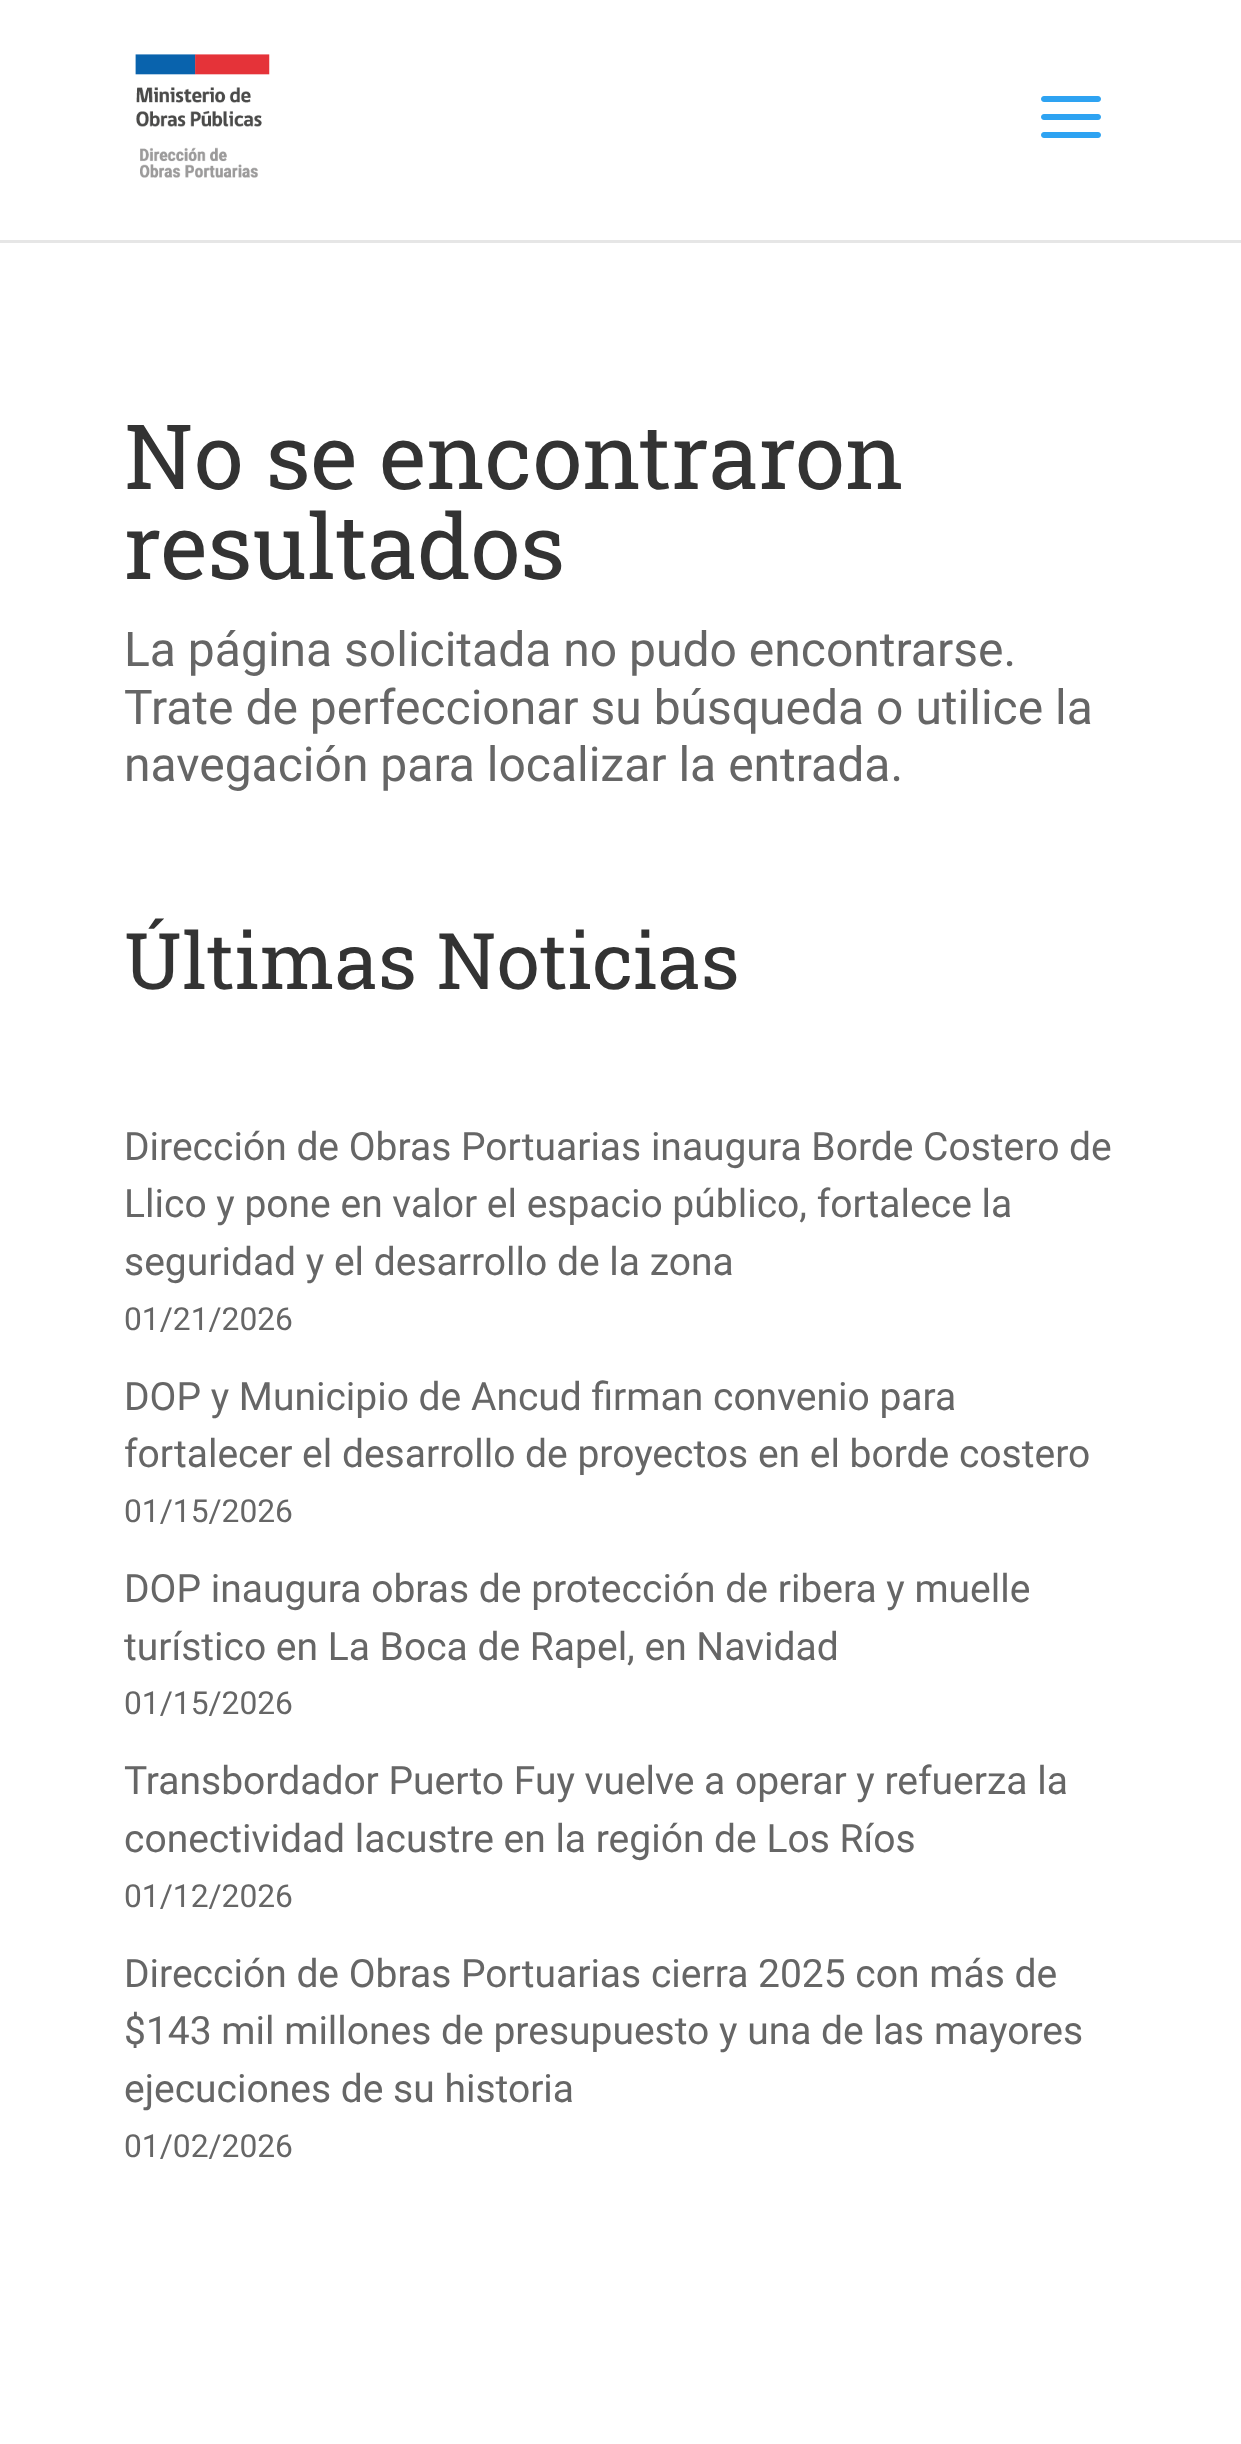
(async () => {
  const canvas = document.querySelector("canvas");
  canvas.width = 1241;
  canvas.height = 2444;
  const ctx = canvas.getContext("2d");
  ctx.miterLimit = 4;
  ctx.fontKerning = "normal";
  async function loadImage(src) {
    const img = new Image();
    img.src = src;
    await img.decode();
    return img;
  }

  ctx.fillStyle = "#ffffff";
  ctx.fillRect(0, 0, 1241, 2444);
  ctx.fillStyle = "#e6e6e6";
  ctx.fillRect(0, 240, 1241, 3);
  ctx.drawImage(await loadImage("img/1.png"), 135, 54, 135, 124);
  ctx.drawImage(await loadImage("img/2.png"), 1041, 96, 60, 42);
  ctx.font = "90px Roboto Slab";
  ctx.fillStyle = "#333333";
  ctx.fillText("No se encontraron", 124, 489);
  ctx.fillText("resultados", 124, 579);
  ctx.font = "48px Roboto";
  ctx.fillStyle = "#666666";
  for (const [text, x, y] of [
    ["La página solicitada no pudo encontrarse.", 124, 666],
    ["Trate de perfeccionar su búsqueda o utilice la", 124, 724],
    ["navegación para localizar la entrada.", 124, 781],
  ]) {
    ctx.fillText(text, x, y);
  }
  ctx.font = "78px Roboto Slab";
  ctx.fillStyle = "#333333";
  ctx.fillText("Últimas Noticias", 124, 989);
  ctx.font = "39px Roboto";
  ctx.fillStyle = "#666666";
  for (const [text, x, y] of [
    ["Dirección de Obras Portuarias inaugura Borde Costero de", 124, 1160],
    ["Llico y pone en valor el espacio público, fortalece la", 124, 1217],
    ["seguridad y el desarrollo de la zona", 124, 1275],
  ]) {
    ctx.fillText(text, x, y);
  }
  ctx.font = "31.75px Roboto";
  ctx.fillText("01/21/2026", 124, 1330);
  ctx.font = "39px Roboto";
  ctx.fillText("DOP y Municipio de Ancud firman convenio para", 124, 1410);
  ctx.fillText("fortalecer el desarrollo de proyectos en el borde costero", 124, 1467);
  ctx.font = "31.75px Roboto";
  ctx.fillText("01/15/2026", 124, 1522);
  ctx.font = "39px Roboto";
  ctx.fillText("DOP inaugura obras de protección de ribera y muelle", 124, 1602);
  ctx.fillText("turístico en La Boca de Rapel, en Navidad", 124, 1660);
  ctx.font = "31.75px Roboto";
  ctx.fillText("01/15/2026", 124, 1714);
  ctx.font = "39px Roboto";
  ctx.fillText("Transbordador Puerto Fuy vuelve a operar y refuerza la", 124, 1794);
  ctx.fillText("conectividad lacustre en la región de Los Ríos", 124, 1852);
  ctx.font = "31.75px Roboto";
  ctx.fillText("01/12/2026", 124, 1907);
  ctx.font = "39px Roboto";
  for (const [text, x, y] of [
    ["Dirección de Obras Portuarias cierra 2025 con más de", 124, 1987],
    ["$143 mil millones de presupuesto y una de las mayores", 124, 2044],
    ["ejecuciones de su historia", 124, 2102],
  ]) {
    ctx.fillText(text, x, y);
  }
  ctx.font = "31.75px Roboto";
  ctx.fillText("01/02/2026", 124, 2157);
})();
